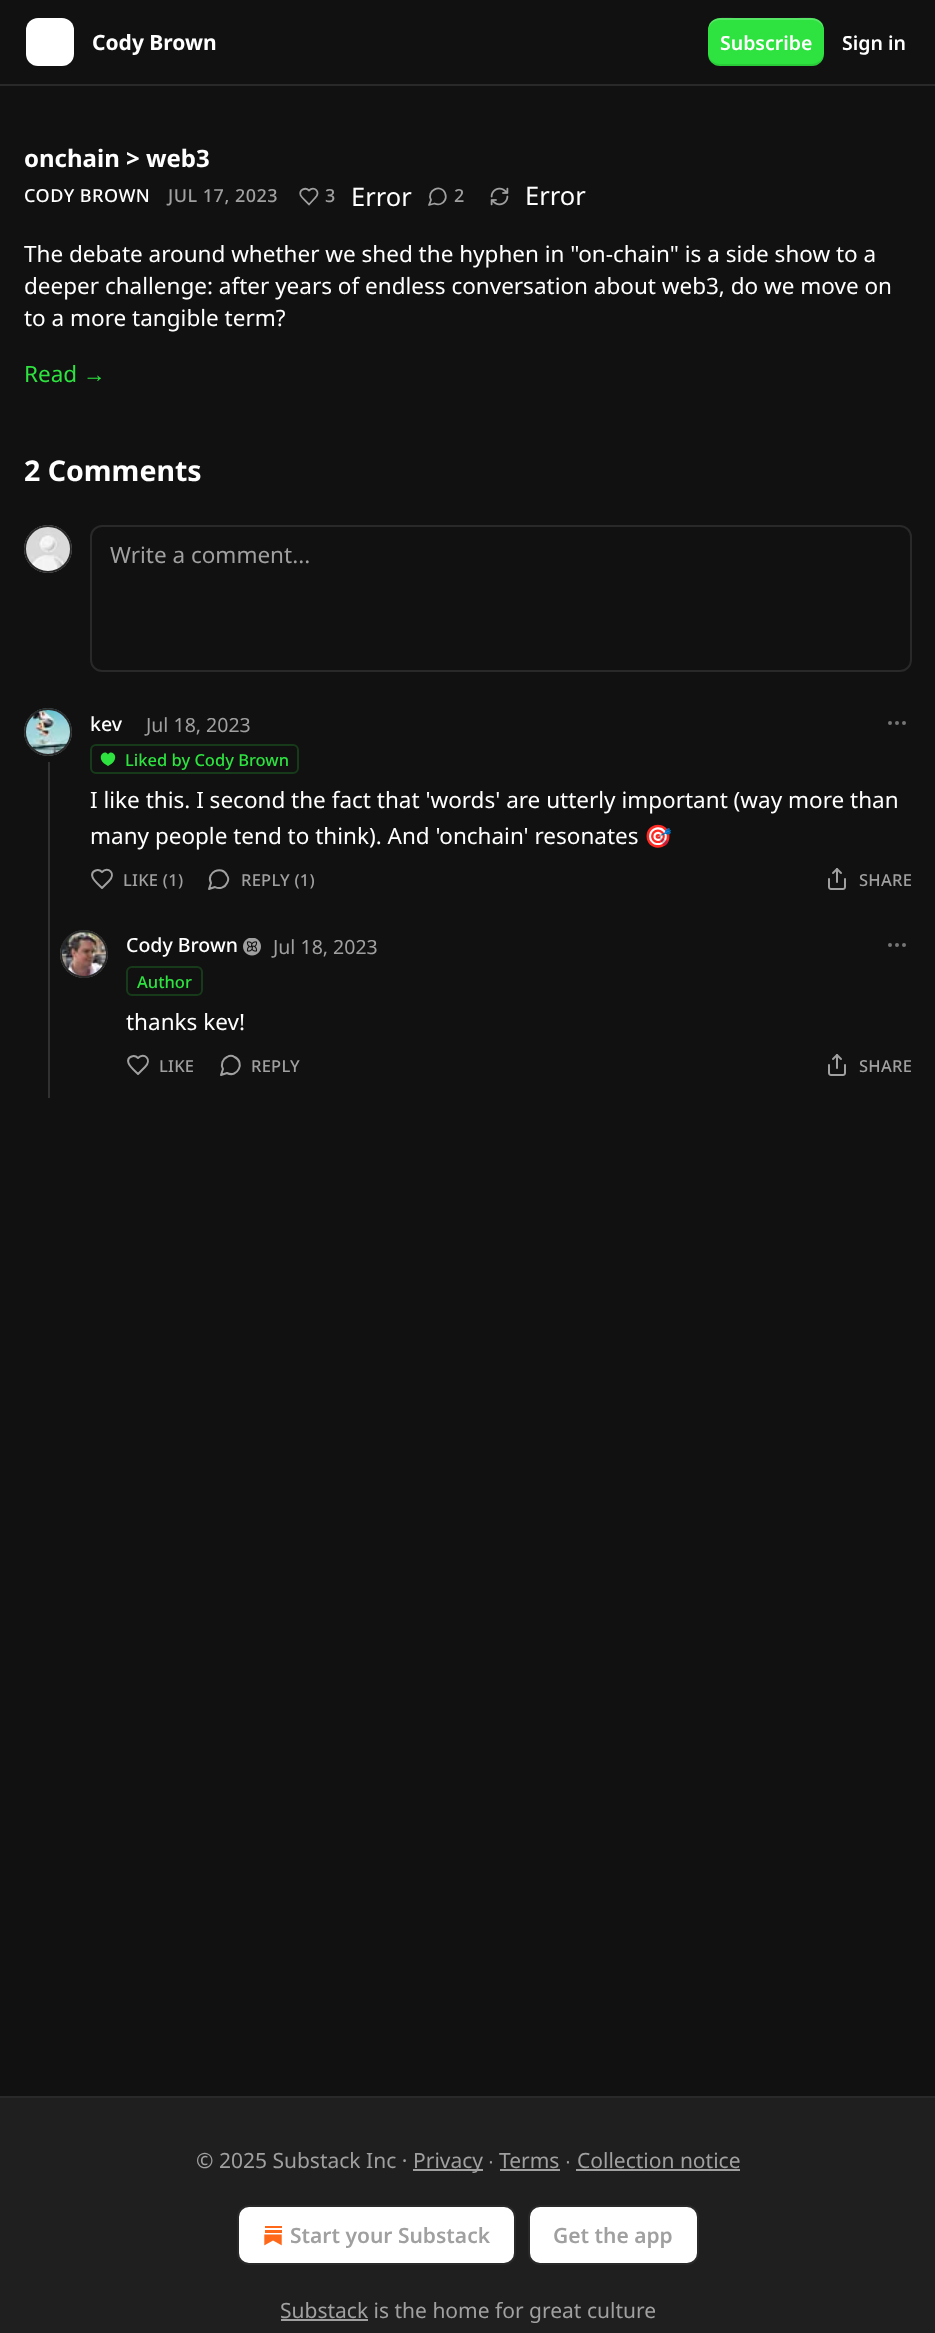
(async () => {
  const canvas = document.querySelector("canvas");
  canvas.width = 935;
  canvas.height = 2333;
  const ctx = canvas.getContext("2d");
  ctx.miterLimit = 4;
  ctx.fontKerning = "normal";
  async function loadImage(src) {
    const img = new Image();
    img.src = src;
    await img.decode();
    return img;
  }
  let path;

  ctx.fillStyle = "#111111";
  ctx.fillRect(0, 0, 935, 2333);
  ctx.fillStyle = "#292929";
  ctx.fillRect(0, 84, 935, 2);
  ctx.fillStyle = "#ffffff";
  ctx.beginPath();
  ctx.roundRect(26, 18, 48, 48, 12);
  ctx.fill();
  ctx.fillStyle = "#2ee240";
  ctx.beginPath();
  ctx.roundRect(708, 18, 116, 48, 12);
  ctx.fill();
  ctx.fillStyle = "rgba(0, 0, 0, 0.1)";
  path = new Path2D("M708 52C708 69 723 66 735 66H797C809 66 824 69 824 52C824 59 818 64 812 64H720C713 64 708 59 708 52Z");
  ctx.fill(path);
  ctx.fillStyle = "rgba(255, 255, 255, 0.2)";
  path = new Path2D("M720 20H812C818 20 824 25 824 32C824 15 809 18 797 18H735C723 18 708 15 708 32C708 25 713 20 720 20Z");
  ctx.fill(path);
  path = new Path2D("M315 198C321.5 192 314 185.5 309 190.5C305.5 187 299 189.5 300.5 195C301.5 197.5 307 202 309 204.5Z");
  ctx.strokeStyle = "#a0a0a0";
  ctx.lineWidth = 1.8;
  ctx.lineCap = "round";
  ctx.lineJoin = "round";
  ctx.stroke(path);
  path = new Path2D("M434.5 203.5C438.5 205.5 443 204 445 200C446 198 446 195.5 445 193C441 183.5 426 190.5 431 200L429 205Z");
  ctx.stroke(path);
  ctx.drawImage(await loadImage("img/1.png"), 490, 187, 19, 19);
  ctx.beginPath();
  ctx.arc(48, 549, 23, 0, Math.PI * 2);
  ctx.strokeStyle = "#292929";
  ctx.lineWidth = 2;
  ctx.stroke();
  ctx.drawImage(await loadImage("img/2.png"), 24, 525, 48, 48);
  ctx.beginPath();
  ctx.arc(48, 549, 23, 0, Math.PI * 2);
  ctx.stroke();
  ctx.beginPath();
  ctx.roundRect(91, 526, 820, 145, 11);
  ctx.lineJoin = "miter";
  ctx.stroke();
  ctx.fillStyle = "#313131";
  ctx.fillRect(48, 762, 2, 336);
  ctx.beginPath();
  ctx.arc(48, 732, 23, 0, Math.PI * 2);
  ctx.stroke();
  ctx.drawImage(await loadImage("img/3.png"), 24, 708, 48, 48);
  ctx.beginPath();
  ctx.arc(48, 732, 23, 0, Math.PI * 2);
  ctx.stroke();
  ctx.beginPath();
  ctx.roundRect(91, 745, 207, 28, 5);
  ctx.strokeStyle = "#173b1a";
  ctx.stroke();
  ctx.fillStyle = "#2ee240";
  path = new Path2D("M108 766L104 763.5C96 756 105 749 108 754.5C111 749 120 756 112 763.5Z");
  ctx.fill(path);
  ctx.beginPath();
  ctx.arc(897, 723, 1, 0, Math.PI * 2);
  ctx.strokeStyle = "#767676";
  ctx.stroke();
  ctx.beginPath();
  ctx.arc(904, 723, 1, 0, Math.PI * 2);
  ctx.stroke();
  ctx.beginPath();
  ctx.arc(890, 723, 1, 0, Math.PI * 2);
  ctx.stroke();
  path = new Path2D("M109 881C116.5 873.5 108 866 102 872C98 868 90.5 871 92.5 877C93.5 880.5 99.5 885.5 102 888Z");
  ctx.strokeStyle = "#a0a0a0";
  ctx.lineJoin = "round";
  ctx.stroke(path);
  path = new Path2D("M215 887C219.5 889.5 225 887.5 227 883C228.5 880.5 228.5 877.5 227 875.5C222 864.5 205.5 872.5 211 883L209 889Z");
  ctx.stroke(path);
  ctx.drawImage(await loadImage("img/4.png"), 828, 868, 18, 22);
  ctx.beginPath();
  ctx.arc(84, 954, 23, 0, Math.PI * 2);
  ctx.strokeStyle = "#292929";
  ctx.stroke();
  ctx.drawImage(await loadImage("img/5.png"), 60, 930, 48, 48);
  ctx.beginPath();
  ctx.arc(84, 954, 23, 0, Math.PI * 2);
  ctx.stroke();
  ctx.drawImage(await loadImage("img/6.png"), 243, 938, 18, 18);
  ctx.beginPath();
  ctx.roundRect(127, 967, 75, 28, 5);
  ctx.strokeStyle = "#173b1a";
  ctx.lineJoin = "miter";
  ctx.stroke();
  ctx.beginPath();
  ctx.arc(897, 945, 1, 0, Math.PI * 2);
  ctx.strokeStyle = "#767676";
  ctx.stroke();
  ctx.beginPath();
  ctx.arc(904, 945, 1, 0, Math.PI * 2);
  ctx.stroke();
  ctx.beginPath();
  ctx.arc(890, 945, 1, 0, Math.PI * 2);
  ctx.stroke();
  path = new Path2D("M145 1067C152.5 1059.5 144 1052 138 1058C134 1054 126.5 1057 128.5 1063C129.5 1066.5 135.5 1071.5 138 1074Z");
  ctx.strokeStyle = "#a0a0a0";
  ctx.lineJoin = "round";
  ctx.stroke(path);
  path = new Path2D("M227 1073C237.5 1078.5 245.5 1062 234.5 1057C232.5 1055.5 229.5 1055.5 227 1057C222.5 1059 220.5 1064.5 223 1069L221 1075Z");
  ctx.stroke(path);
  ctx.drawImage(await loadImage("img/4.png"), 828, 1054, 18, 22);
  for (const [x, y, w, h, color] of [
    [0, 2098, 935, 235, "#1f1f1f"],
    [0, 2096, 935, 2, "#292929"],
    [413, 2169, 70, 2, "#a0a0a0"],
    [500, 2169, 60, 2, "#a0a0a0"],
    [576, 2169, 164, 2, "#a0a0a0"],
  ]) {
    ctx.fillStyle = color;
    ctx.fillRect(x, y, w, h);
  }
  ctx.fillStyle = "#ffffff";
  ctx.beginPath();
  ctx.roundRect(238, 2206, 277, 58, 11);
  ctx.fill();
  ctx.strokeStyle = "#292929";
  ctx.lineJoin = "miter";
  ctx.stroke();
  ctx.drawImage(await loadImage("img/7.png"), 264, 2226, 18, 20);
  ctx.beginPath();
  ctx.roundRect(529, 2206, 169, 58, 11);
  ctx.fill();
  ctx.stroke();
  ctx.fillStyle = "#a0a0a0";
  ctx.fillRect(281, 2319, 87, 2);
  ctx.font = "bold 21px Noto Sans";
  ctx.fillStyle = "#ffffff";
  ctx.fillText("Cody Brown", 92, 50);
  ctx.font = "600 19.5px Noto Sans";
  ctx.fillText("Subscribe", 720, 50);
  ctx.fillText("Sign in", 842, 50);
  ctx.font = "bold 24px Noto Sans";
  ctx.fillText("onchain > web3", 24, 167);
  ctx.letterSpacing = "0.5px";
  ctx.font = "500 18px Noto Sans";
  ctx.fillText("CODY BROWN", 24, 202);
  ctx.fillStyle = "#a0a0a0";
  ctx.fillText("JUL 17, 2023", 168, 202);
  ctx.fillText("3", 325, 202);
  ctx.letterSpacing = "0px";
  ctx.font = "25.5px Noto Sans";
  ctx.fillStyle = "#ffffff";
  ctx.fillText("Error", 351, 206);
  ctx.letterSpacing = "0.5px";
  ctx.font = "500 18px Noto Sans";
  ctx.fillStyle = "#a0a0a0";
  ctx.fillText("2", 454, 202);
  ctx.letterSpacing = "0px";
  ctx.font = "25.5px Noto Sans";
  ctx.fillStyle = "#ffffff";
  ctx.fillText("Error", 525, 205);
  ctx.font = "22.5px Noto Sans";
  for (const [text, x, y] of [
    ["The debate around whether we shed the hyphen in \"on-chain\" is a side show to a", 24, 262],
    ["deeper challenge: after years of endless conversation about web3, do we move on", 24, 294],
    ["to a more tangible term?", 24, 326],
  ]) {
    ctx.fillText(text, x, y);
  }
  ctx.fillStyle = "#2ee240";
  ctx.fillText("Read", 24, 382);
  ctx.font = "22.5px Liberation Sans";
  ctx.fillText("→", 83, 382);
  ctx.font = "bold 28.5px Noto Sans";
  ctx.fillStyle = "#ffffff";
  ctx.fillText("2 Comments", 24, 481);
  ctx.font = "22.5px Noto Sans";
  ctx.fillStyle = "#a0a0a0";
  ctx.fillText("Write a comment...", 110, 563);
  ctx.font = "500 19.5px Noto Sans";
  ctx.fillStyle = "#ffffff";
  ctx.fillText("kev", 90, 731);
  ctx.font = "19.5px Noto Sans";
  ctx.fillStyle = "#a0a0a0";
  ctx.fillText("Jul 18, 2023", 146, 732);
  ctx.font = "500 16.5px Noto Sans";
  ctx.fillStyle = "#2ee240";
  ctx.fillText("Liked by Cody Brown", 125, 766);
  ctx.font = "22.5px Noto Sans";
  ctx.fillStyle = "#ffffff";
  ctx.fillText("I like this. I second the fact that 'words' are utterly important (way more than", 90, 808);
  ctx.fillText("many people tend to think). And 'onchain' resonates", 90, 844);
  ctx.font = "22.5px Noto Color Emoji";
  ctx.fillText("🎯", 644, 844);
  ctx.letterSpacing = "0.25px";
  ctx.font = "500 16.5px Noto Sans";
  ctx.fillStyle = "#a0a0a0";
  for (const [text, x, y] of [
    ["LIKE (1)", 123, 886],
    ["REPLY (1)", 241, 886],
    ["SHARE", 859, 886],
  ]) {
    ctx.fillText(text, x, y);
  }
  ctx.letterSpacing = "0px";
  ctx.font = "500 19.5px Noto Sans";
  ctx.fillStyle = "#ffffff";
  ctx.fillText("Cody Brown", 126, 952);
  ctx.font = "19.5px Noto Sans";
  ctx.fillStyle = "#a0a0a0";
  ctx.fillText("Jul 18, 2023", 273, 954);
  ctx.font = "500 16.5px Noto Sans";
  ctx.fillStyle = "#2ee240";
  ctx.fillText("Author", 137, 988);
  ctx.font = "22.5px Noto Sans";
  ctx.fillStyle = "#ffffff";
  ctx.fillText("thanks kev!", 126, 1030);
  ctx.letterSpacing = "0.25px";
  ctx.font = "500 16.5px Noto Sans";
  ctx.fillStyle = "#a0a0a0";
  for (const [text, x, y] of [
    ["LIKE", 159, 1072],
    ["REPLY", 251, 1072],
    ["SHARE", 859, 1072],
  ]) {
    ctx.fillText(text, x, y);
  }
  ctx.letterSpacing = "0px";
  ctx.font = "21px Noto Sans";
  ctx.fillText("© 2025 Substack Inc ·", 196, 2168);
  ctx.fillText("Privacy", 413, 2168);
  ctx.font = "21px Liberation Sans";
  ctx.fillText("∙", 488, 2168);
  ctx.font = "21px Noto Sans";
  ctx.fillText("Terms", 499, 2168);
  ctx.font = "21px Liberation Sans";
  ctx.fillText("∙", 565, 2168);
  ctx.font = "21px Noto Sans";
  ctx.fillText("Collection notice", 577, 2168);
  ctx.font = "600 21px Noto Sans";
  ctx.fillText("Start your Substack", 290, 2243);
  ctx.fillText("Get the app", 553, 2243);
  ctx.font = "21px Noto Sans";
  ctx.fillText("Substack is the home for great culture", 280, 2318);
})();
